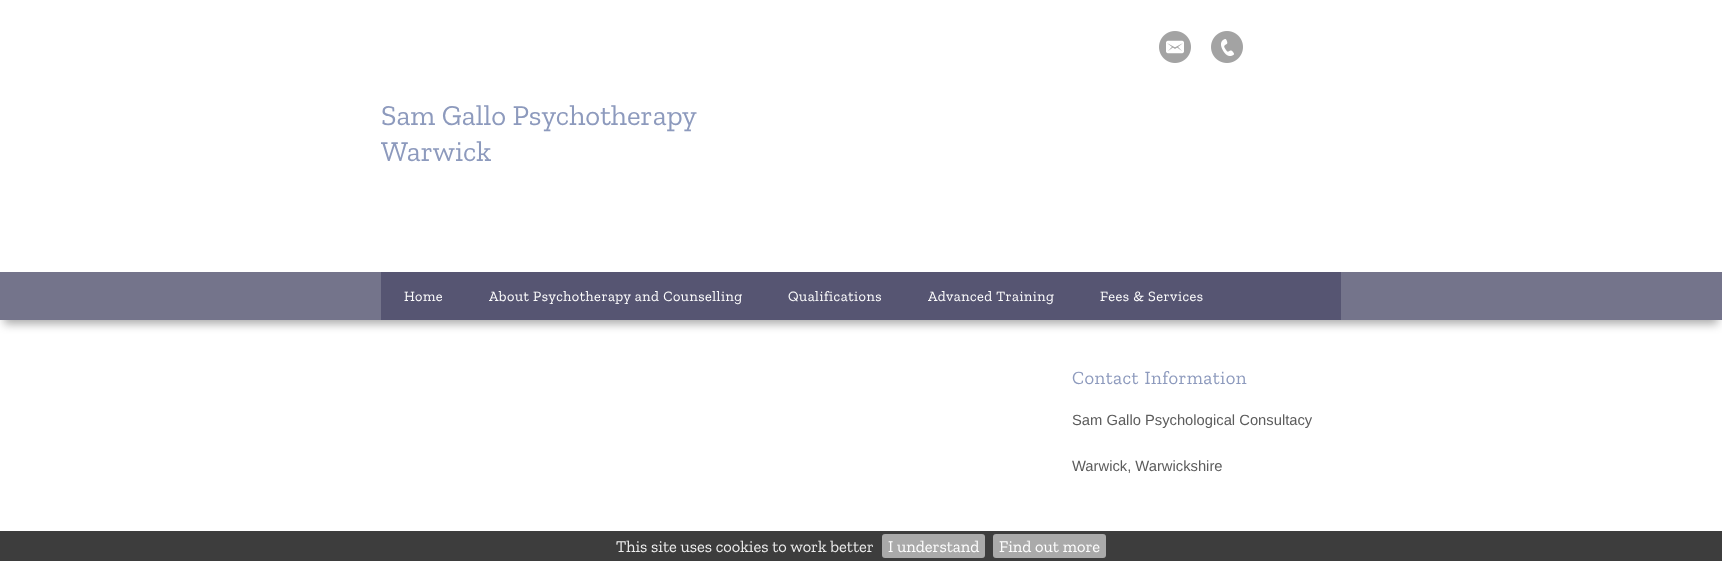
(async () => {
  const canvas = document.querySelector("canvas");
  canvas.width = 1722;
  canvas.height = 561;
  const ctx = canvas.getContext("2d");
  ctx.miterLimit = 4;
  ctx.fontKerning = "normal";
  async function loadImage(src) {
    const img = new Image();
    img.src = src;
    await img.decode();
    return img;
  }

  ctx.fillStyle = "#ffffff";
  ctx.fillRect(0, 0, 1722, 561);
  ctx.drawImage(await loadImage("img/1.png"), 1159, 31, 32, 32);
  ctx.drawImage(await loadImage("img/2.png"), 1211, 31, 32, 32);
  ctx.fillStyle = "rgba(0, 0, 0, 0.33)";
  ctx.filter = "blur(5px)";
  ctx.beginPath();
  ctx.rect(4, 284, 1714, 40);
  ctx.fill();
  ctx.filter = "none";
  for (const [x, y, w, h, color] of [
    [0, 272, 1722, 48, "#74748b"],
    [1227, 272, 114, 48, "#565572"],
    [381, 272, 846, 48, "#565572"],
    [0, 531, 1722, 30, "#3d3d3d"],
  ]) {
    ctx.fillStyle = color;
    ctx.fillRect(x, y, w, h);
  }
  ctx.fillStyle = "#aaaaaa";
  ctx.beginPath();
  ctx.roundRect(882, 534, 103, 24, 3);
  ctx.fill();
  ctx.beginPath();
  ctx.roundRect(993, 534, 113, 24, 3);
  ctx.fill();
  ctx.font = "28.9px Zilla Slab";
  ctx.fillStyle = "#8d9abd";
  ctx.fillText("Sam Gallo Psychotherapy", 381, 125);
  ctx.fillText("Warwick", 381, 161);
  ctx.letterSpacing = "0.5px";
  ctx.font = "14.4px Zilla Slab";
  ctx.fillStyle = "#ffffff";
  for (const [text, x, y] of [
    ["Home", 404, 301],
    ["About Psychotherapy and Counselling", 489, 301],
    ["Qualifications", 788, 301],
    ["Advanced Training", 928, 301],
    ["Fees & Services", 1100, 301],
  ]) {
    ctx.fillText(text, x, y);
  }
  ctx.letterSpacing = "0.4px";
  ctx.wordSpacing = "1px";
  ctx.font = "18.75px Zilla Slab";
  ctx.fillStyle = "#8d9abd";
  ctx.fillText("Contact Information", 1072, 384);
  ctx.letterSpacing = "0px";
  ctx.wordSpacing = "0px";
  ctx.font = "14.75px Liberation Sans";
  ctx.fillStyle = "#5c5c5c";
  ctx.fillText("Sam Gallo Psychological Consultacy", 1072, 425);
  ctx.fillText("Warwick, Warwickshire", 1072, 471);
  ctx.font = "16.5px Zilla Slab";
  ctx.fillStyle = "#eeeeee";
  ctx.fillText("This site uses cookies to work better", 616, 552);
  ctx.fillStyle = "#ffffff";
  ctx.fillText("I understand", 888, 552);
  ctx.fillText("Find out more", 999, 552);
})();
